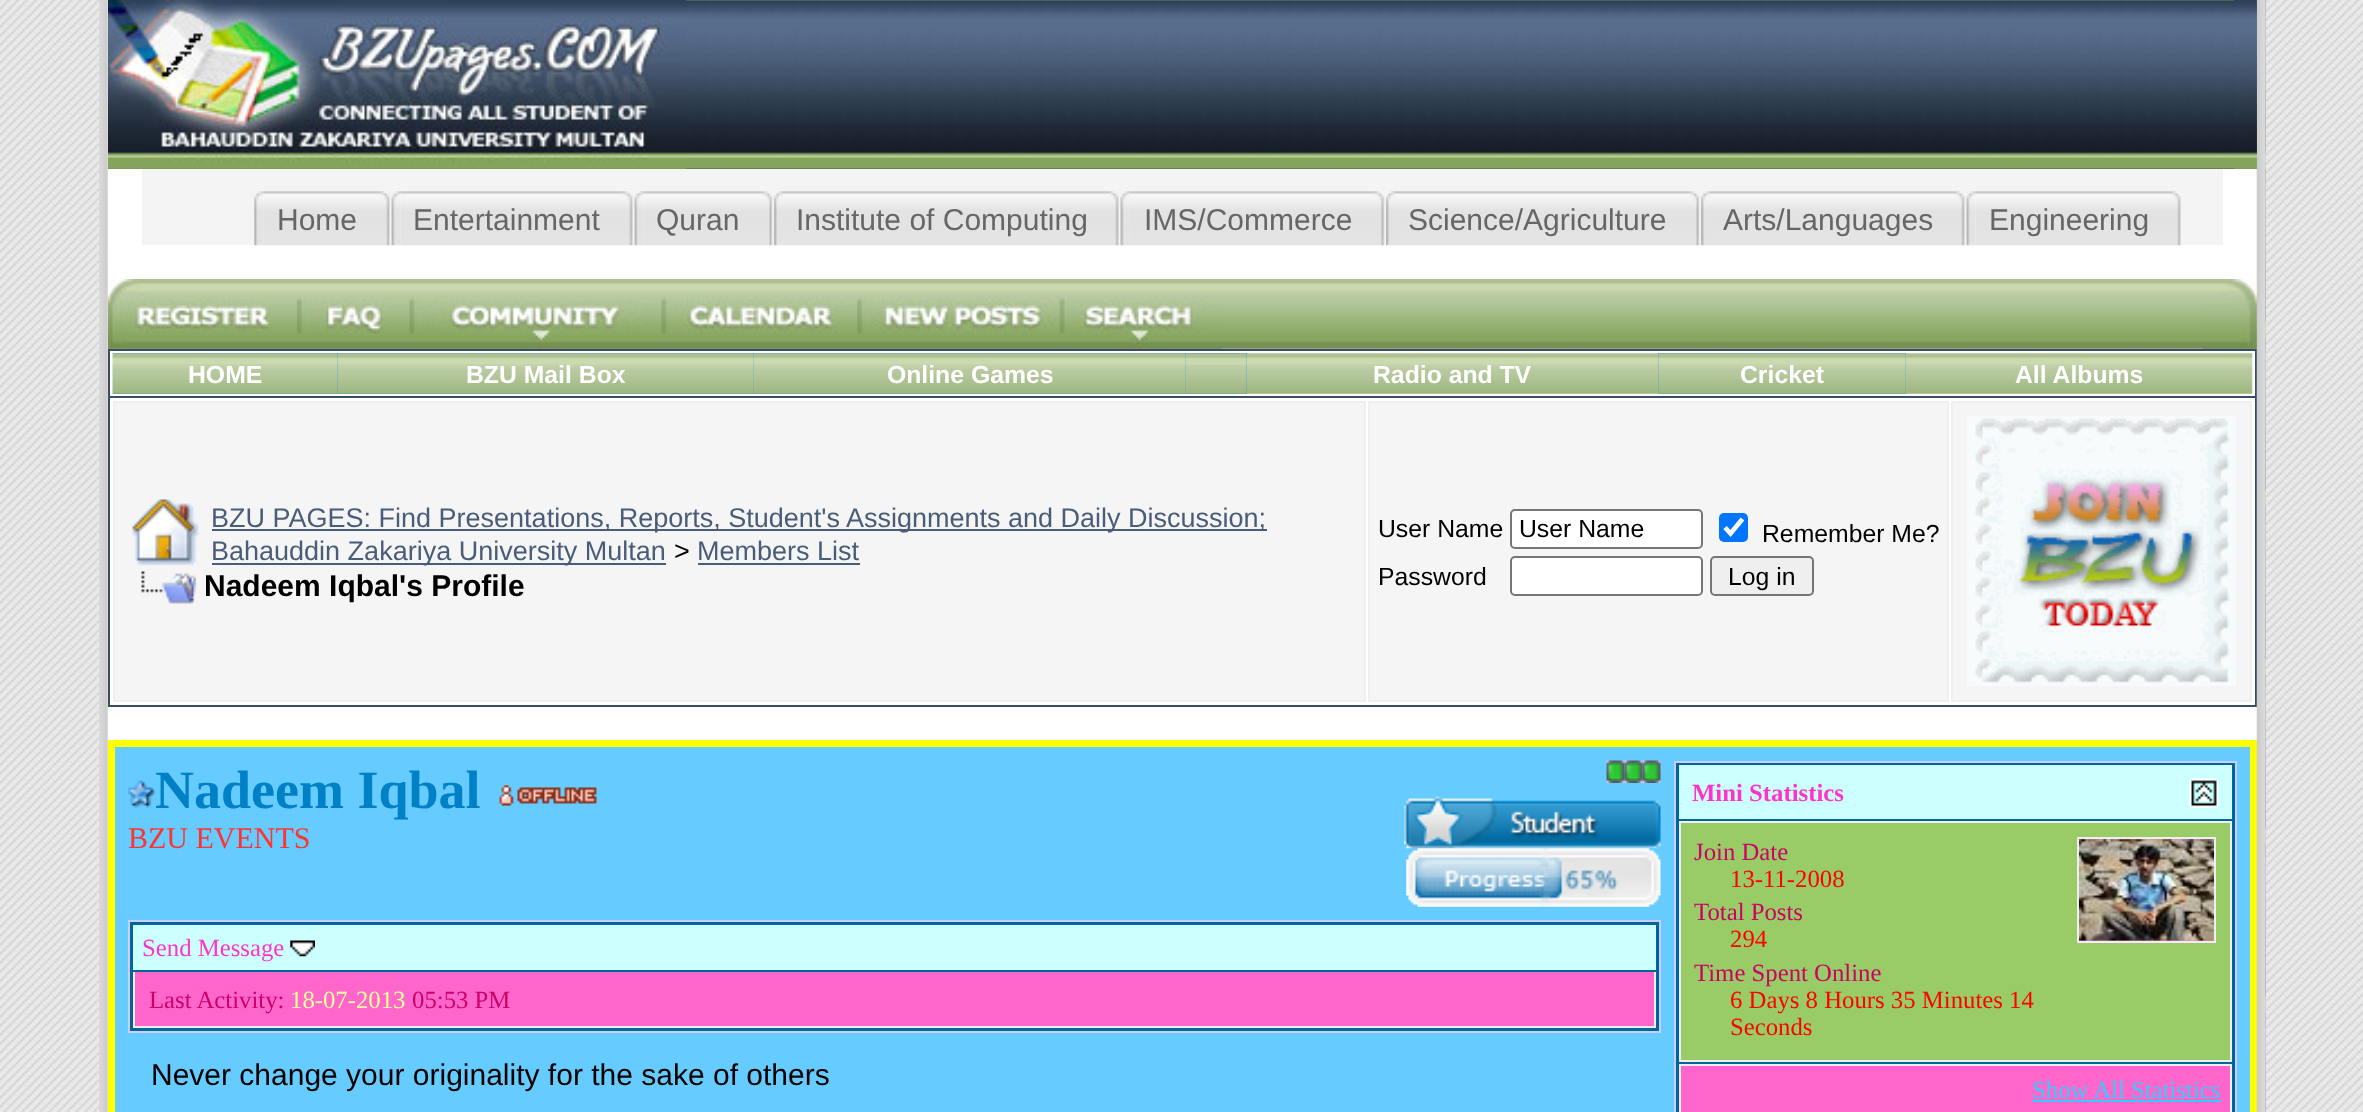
(async () => {
  const canvas = document.querySelector("canvas");
  canvas.width = 2363;
  canvas.height = 1112;
  const ctx = canvas.getContext("2d");
  ctx.miterLimit = 4;
  ctx.fontKerning = "normal";
  async function loadImage(src) {
    const img = new Image();
    img.src = src;
    await img.decode();
    return img;
  }
  let path;

  ctx.fillStyle = "#ffffff";
  ctx.fillRect(0, 0, 2363, 1112);
  ctx.drawImage(await loadImage("img/1.png"), 0, 0, 2363, 1112);
  ctx.drawImage(await loadImage("img/2.png"), 108, 0, 2158, 1112);
  ctx.drawImage(await loadImage("img/3.png"), 99, 0, 9, 1112);
  ctx.drawImage(await loadImage("img/4.png"), 108, 0, 579, 169);
  ctx.fillRect(108, 169, 2149, 571);
  ctx.drawImage(await loadImage("img/18.png"), 108, 279, 2149, 70);
  ctx.fillStyle = "#394d68";
  ctx.fillRect(108, 349, 2149, 2);
  ctx.fillRect(2255, 349, 2, 47);
  ctx.strokeStyle = "#394d68";
  ctx.lineWidth = 2;
  ctx.strokeRect(109, 397, 2147, 309);
  ctx.fillStyle = "#66ccff";
  ctx.beginPath();
  ctx.rect(111.5, 743.5, 2142, 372);
  ctx.fill();
  ctx.strokeStyle = "#ffff00";
  ctx.lineWidth = 7;
  ctx.stroke();
  ctx.drawImage(await loadImage("img/45.png"), 2256, 0, 10, 1112);
  ctx.drawImage(await loadImage("img/5.png"), 2234, 0, 23, 169);
  ctx.fillStyle = "#f4f4f4";
  ctx.fillRect(142, 169, 2081, 76);
  ctx.drawImage(await loadImage("img/6.png"), 254, 191, 10, 55);
  ctx.drawImage(await loadImage("img/7.png"), 263, 191, 127, 55);
  ctx.drawImage(await loadImage("img/8.png"), 391, 191, 10, 55);
  ctx.drawImage(await loadImage("img/9.png"), 400, 191, 233, 55);
  ctx.drawImage(await loadImage("img/8.png"), 634, 191, 10, 55);
  ctx.drawImage(await loadImage("img/10.png"), 643, 191, 130, 55);
  ctx.drawImage(await loadImage("img/11.png"), 774, 191, 9, 55);
  ctx.drawImage(await loadImage("img/12.png"), 783, 191, 336, 55);
  ctx.drawImage(await loadImage("img/8.png"), 1120, 191, 10, 55);
  ctx.drawImage(await loadImage("img/13.png"), 1129, 191, 256, 55);
  ctx.drawImage(await loadImage("img/14.png"), 1386, 191, 9, 55);
  ctx.drawImage(await loadImage("img/15.png"), 1395, 191, 305, 55);
  ctx.drawImage(await loadImage("img/11.png"), 1701, 191, 9, 55);
  ctx.drawImage(await loadImage("img/16.png"), 1710, 191, 255, 55);
  ctx.drawImage(await loadImage("img/8.png"), 1966, 191, 10, 55);
  ctx.drawImage(await loadImage("img/17.png"), 1975, 191, 206, 55);
  ctx.drawImage(await loadImage("img/19.png"), 108, 279, 189, 70);
  ctx.drawImage(await loadImage("img/20.png"), 297, 297, 113, 52);
  ctx.drawImage(await loadImage("img/21.png"), 409, 297, 253, 52);
  ctx.drawImage(await loadImage("img/22.png"), 661, 297, 197, 52);
  ctx.drawImage(await loadImage("img/23.png"), 857, 297, 203, 52);
  ctx.drawImage(await loadImage("img/24.png"), 1059, 297, 163, 52);
  ctx.drawImage(await loadImage("img/25.png"), 2202, 279, 55, 70);
  ctx.fillStyle = "#394d68";
  ctx.fillRect(108, 349, 2, 47);
  ctx.fillStyle = "#0a93ee";
  ctx.fillRect(113, 353, 1134, 41);
  ctx.drawImage(await loadImage("img/26.png"), 112, 353, 226, 41);
  ctx.drawImage(await loadImage("img/27.png"), 337, 353, 417, 41);
  ctx.drawImage(await loadImage("img/28.png"), 753, 353, 433, 41);
  ctx.drawImage(await loadImage("img/29.png"), 1185, 353, 62, 41);
  ctx.drawImage(await loadImage("img/30.png"), 1246, 353, 412, 41);
  ctx.fillRect(1658, 353, 248, 41);
  ctx.drawImage(await loadImage("img/31.png"), 1658, 353, 248, 41);
  ctx.drawImage(await loadImage("img/32.png"), 1905, 353, 348, 41);
  ctx.fillStyle = "#f5f5f5";
  ctx.beginPath();
  ctx.rect(114, 402, 1251, 299);
  ctx.fill();
  ctx.strokeStyle = "#efefef";
  ctx.lineWidth = 2;
  ctx.stroke();
  ctx.drawImage(await loadImage("img/33.png"), 132, 499, 67, 67);
  for (const [x, y, w, h, color] of [
    [212, 529, 1055, 2, "#4a5d78"],
    [212, 563, 454, 2, "#4a5d78"],
    [698, 563, 162, 2, "#4a5d78"],
  ]) {
    ctx.fillStyle = color;
    ctx.fillRect(x, y, w, h);
  }
  ctx.drawImage(await loadImage("img/34.png"), 141, 571, 55, 33);
  ctx.fillStyle = "#f5f5f5";
  ctx.beginPath();
  ctx.rect(1369, 402, 579, 299);
  ctx.fill();
  ctx.stroke();
  ctx.fillStyle = "#ffffff";
  ctx.beginPath();
  ctx.roundRect(1511, 510, 191, 38, 4);
  ctx.fill();
  ctx.strokeStyle = "#767676";
  ctx.stroke();
  ctx.fillStyle = "#0075ff";
  ctx.beginPath();
  ctx.roundRect(1719, 513, 29, 29, 5);
  ctx.fill();
  path = new Path2D("M1725 527.5L1730.5 533.5L1742.5 519");
  ctx.strokeStyle = "#ffffff";
  ctx.lineWidth = 4.7;
  ctx.stroke(path);
  ctx.fillStyle = "#ffffff";
  ctx.beginPath();
  ctx.roundRect(1511, 557, 191, 38, 4);
  ctx.fill();
  ctx.strokeStyle = "#767676";
  ctx.lineWidth = 2;
  ctx.stroke();
  ctx.fillStyle = "#efefef";
  ctx.beginPath();
  ctx.roundRect(1711, 557, 102, 38, 4);
  ctx.fill();
  ctx.stroke();
  ctx.fillStyle = "#f5f5f5";
  ctx.beginPath();
  ctx.rect(1952, 402, 299, 299);
  ctx.fill();
  ctx.strokeStyle = "#efefef";
  ctx.stroke();
  ctx.drawImage(await loadImage("img/35.png"), 1967, 416, 269, 270);
  ctx.drawImage(await loadImage("img/36.png"), 128, 780, 28, 28);
  ctx.drawImage(await loadImage("img/37.png"), 499, 785, 98, 21);
  ctx.drawImage(await loadImage("img/38.png"), 1606, 760, 19, 23);
  ctx.drawImage(await loadImage("img/39.png"), 1624, 760, 19, 23);
  ctx.drawImage(await loadImage("img/39.png"), 1642, 760, 19, 23);
  ctx.drawImage(await loadImage("img/40.png"), 1404, 796, 257, 53);
  ctx.drawImage(await loadImage("img/41.png"), 1406, 848, 255, 59);
  ctx.fillStyle = "#006699";
  ctx.beginPath();
  ctx.rect(129, 921, 1531, 111);
  ctx.fill();
  ctx.strokeStyle = "#ccccff";
  ctx.stroke();
  ctx.fillStyle = "#ccffff";
  ctx.fillRect(133, 925, 1523, 45);
  ctx.drawImage(await loadImage("img/42.png"), 290, 940, 25, 17);
  for (const [x, y, w, h, color] of [
    [135, 972, 1519, 54, "#ff66cc"],
    [1654, 972, 2, 56, "#efefef"],
    [133, 1026, 1523, 2, "#efefef"],
    [133, 972, 2, 56, "#efefef"],
  ]) {
    ctx.fillStyle = color;
    ctx.fillRect(x, y, w, h);
  }
  ctx.fillStyle = "#006699";
  ctx.beginPath();
  ctx.rect(1675, 762, 561, 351);
  ctx.fill();
  ctx.stroke();
  ctx.fillStyle = "#ccffff";
  ctx.fillRect(1679, 765, 553, 54);
  ctx.drawImage(await loadImage("img/43.png"), 2189, 778, 30, 30);
  ctx.fillStyle = "#99cc66";
  ctx.beginPath();
  ctx.rect(1680, 822, 551, 239);
  ctx.fill();
  ctx.strokeStyle = "#efefef";
  ctx.stroke();
  ctx.fillStyle = "#ff66cc";
  ctx.beginPath();
  ctx.rect(2078, 838, 137, 104);
  ctx.fill();
  ctx.stroke();
  ctx.drawImage(await loadImage("img/44.png"), 2079, 839, 135, 102);
  ctx.beginPath();
  ctx.rect(1680, 1065, 551, 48);
  ctx.fill();
  ctx.stroke();
  ctx.fillStyle = "#33ccff";
  ctx.fillRect(2032, 1100, 189, 2);
  ctx.font = "30px Liberation Sans";
  ctx.fillStyle = "#666666";
  for (const [text, x, y] of [
    ["Home", 277, 230],
    ["Entertainment", 413, 230],
    ["Quran", 656, 230],
    ["Institute of Computing", 796, 230],
    ["IMS/Commerce", 1144, 230],
    ["Science/Agriculture", 1408, 230],
    ["Arts/Languages", 1723, 230],
    ["Engineering", 1989, 230],
  ]) {
    ctx.fillText(text, x, y);
  }
  ctx.font = "bold 24.75px Liberation Sans";
  ctx.fillStyle = "#ffffff";
  for (const [text, x, y] of [
    ["HOME", 188, 383],
    ["BZU Mail Box", 466, 383],
    ["Online Games", 887, 383],
    ["Radio and TV", 1373, 383],
    ["Cricket", 1740, 383],
    ["All Albums", 2015, 383],
  ]) {
    ctx.fillText(text, x, y);
  }
  ctx.font = "27px Liberation Sans";
  ctx.fillStyle = "#4a5d78";
  ctx.fillText("BZU PAGES: Find Presentations, Reports, Student's Assignments and Daily Discussion;", 211, 527);
  ctx.fillText("Bahauddin Zakariya University Multan", 211, 560);
  ctx.fillStyle = "#000000";
  ctx.fillText(">", 674, 560);
  ctx.fillStyle = "#4a5d78";
  ctx.fillText("Members List", 697, 560);
  ctx.font = "bold 30px Liberation Sans";
  ctx.fillStyle = "#000000";
  ctx.fillText("Nadeem Iqbal's Profile", 204, 596);
  ctx.font = "24.75px Liberation Sans";
  for (const [text, x, y] of [
    ["User Name", 1378, 537],
    ["User Name", 1519, 537],
    ["Remember Me?", 1762, 542],
    ["Password", 1378, 585],
    ["Log in", 1728, 585],
  ]) {
    ctx.fillText(text, x, y);
  }
  ctx.font = "bold 54px Liberation Serif";
  ctx.fillStyle = "#0081c5";
  ctx.fillText("Nadeem Iqbal", 155, 808);
  ctx.font = "30px Liberation Serif";
  ctx.fillStyle = "#ff3333";
  ctx.fillText("BZU EVENTS", 128, 848);
  ctx.font = "24.75px Liberation Serif";
  ctx.fillStyle = "#ff33cc";
  ctx.fillText("Send Message", 142, 956);
  ctx.fillStyle = "#cc0066";
  ctx.fillText("Last Activity:", 149, 1008);
  ctx.fillStyle = "#ffff99";
  ctx.fillText("18-07-2013", 290, 1008);
  ctx.fillStyle = "#cc0066";
  ctx.fillText("05:53 PM", 412, 1008);
  ctx.font = "30px Liberation Sans";
  ctx.fillStyle = "#000000";
  ctx.fillText("Never change your originality for the sake of others", 151, 1085);
  ctx.font = "bold 24.75px Liberation Serif";
  ctx.fillStyle = "#ff33cc";
  ctx.fillText("Mini Statistics", 1692, 801);
  ctx.font = "24.75px Liberation Serif";
  ctx.fillStyle = "#cc0066";
  ctx.fillText("Join Date", 1694, 860);
  ctx.fillStyle = "#ff0000";
  ctx.fillText("13-11-2008", 1730, 887);
  ctx.fillStyle = "#cc0066";
  ctx.fillText("Total Posts", 1694, 920);
  ctx.fillStyle = "#ff0000";
  ctx.fillText("294", 1730, 947);
  ctx.fillStyle = "#cc0066";
  ctx.fillText("Time Spent Online", 1694, 981);
  ctx.fillStyle = "#ff0000";
  ctx.fillText("6 Days 8 Hours 35 Minutes 14", 1730, 1008);
  ctx.fillText("Seconds", 1730, 1035);
  ctx.fillStyle = "#33ccff";
  ctx.fillText("Show All Statistics", 2032, 1098);
})();
